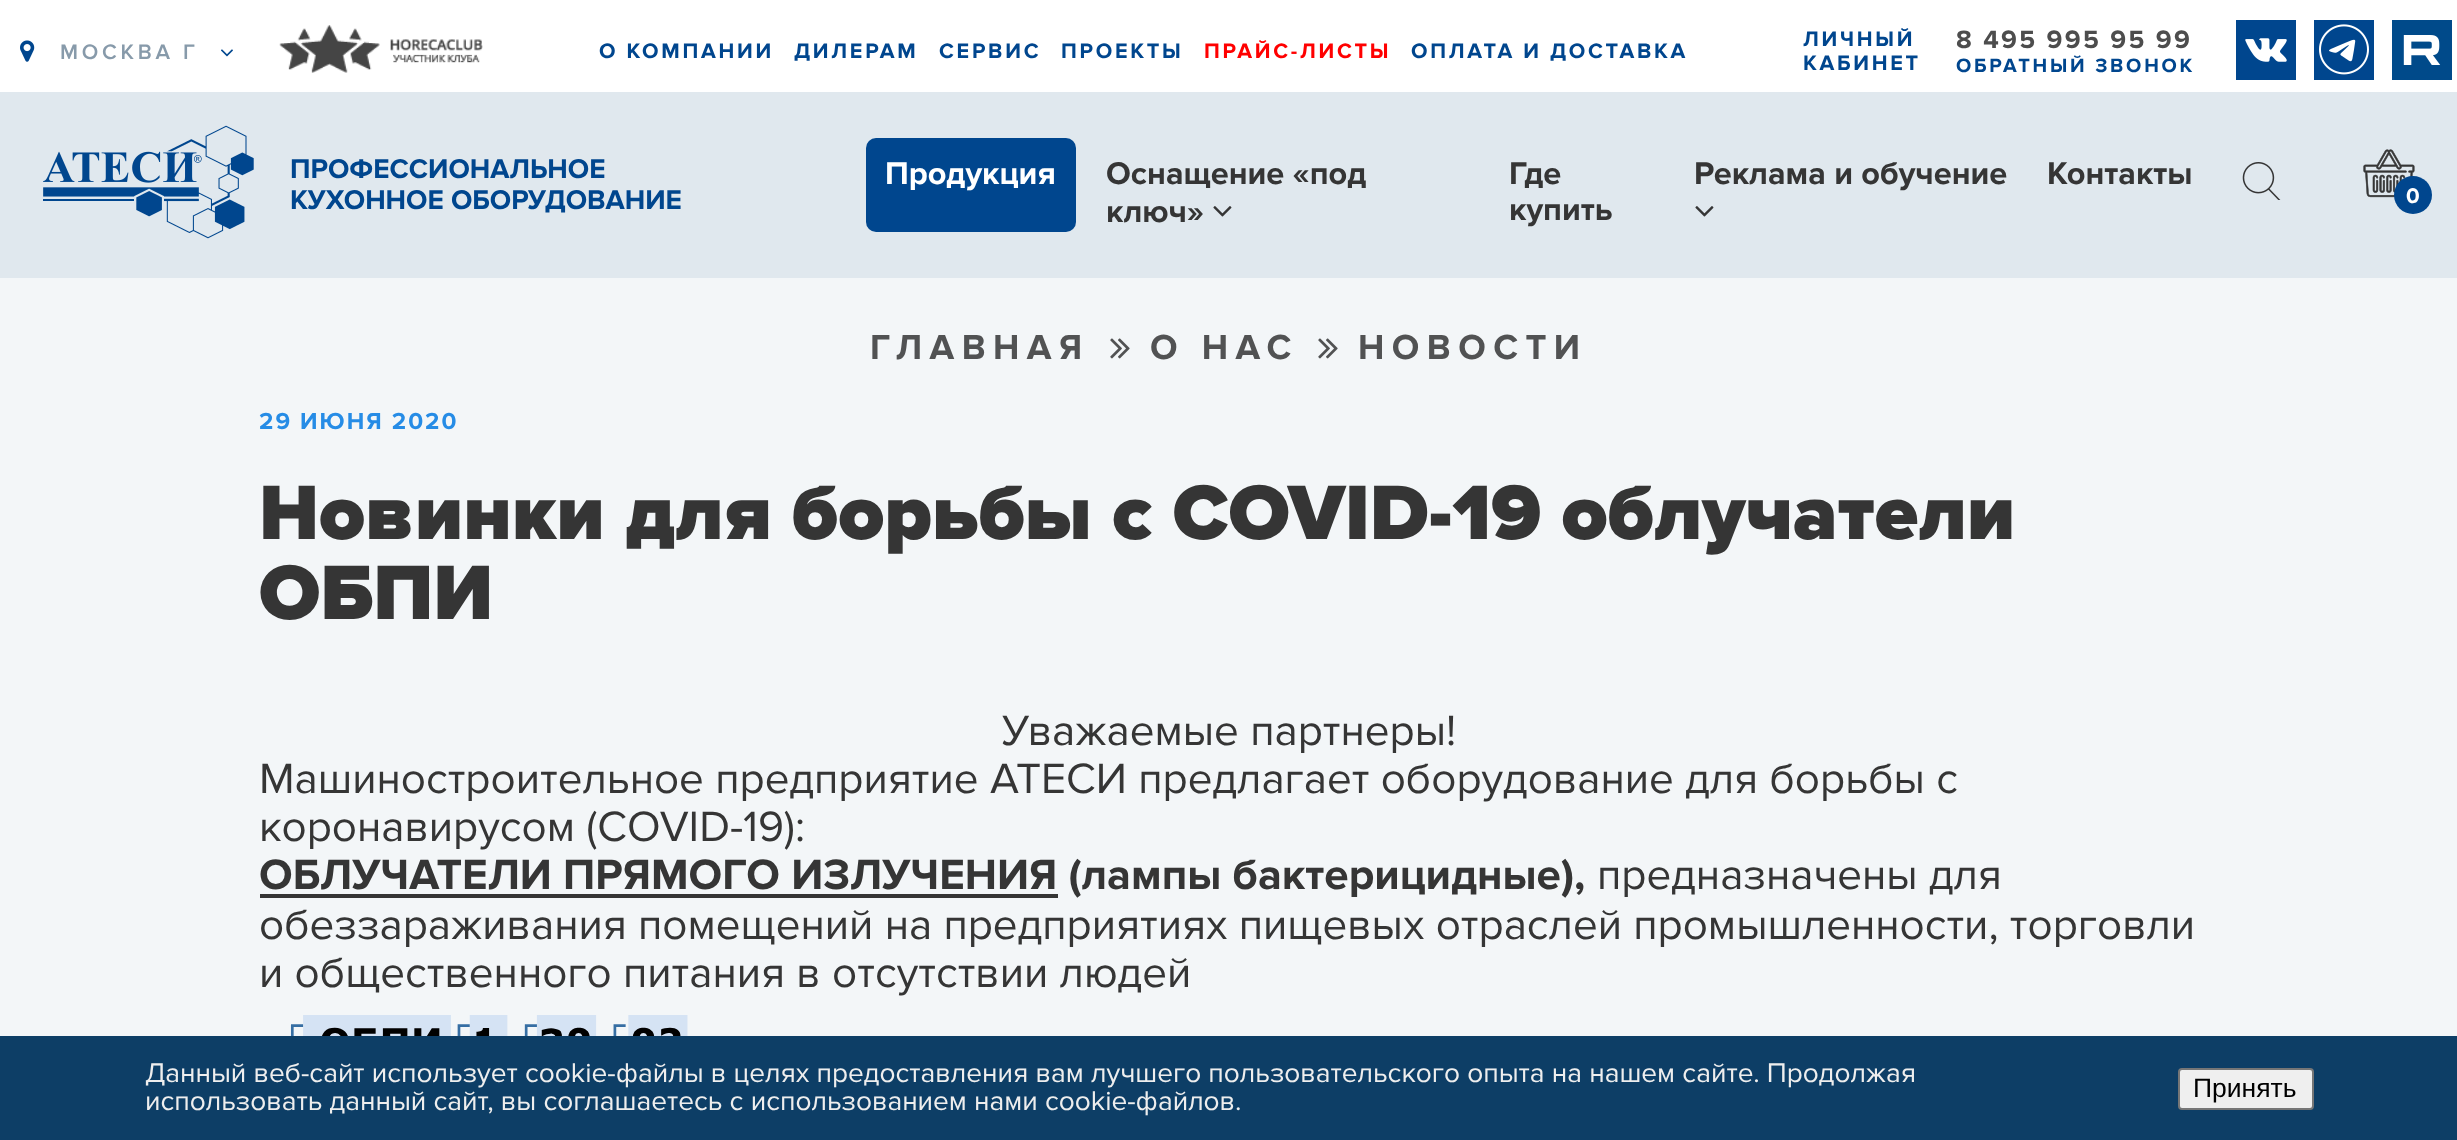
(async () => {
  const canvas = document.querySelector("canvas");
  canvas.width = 2457;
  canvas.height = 1140;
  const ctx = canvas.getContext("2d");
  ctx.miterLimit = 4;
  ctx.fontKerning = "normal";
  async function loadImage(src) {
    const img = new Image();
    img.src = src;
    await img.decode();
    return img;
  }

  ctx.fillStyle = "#ffffff";
  ctx.fillRect(0, 0, 2457, 1140);
  ctx.drawImage(await loadImage("img/1.png"), 20, 40, 15, 22);
  ctx.drawImage(await loadImage("img/2.png"), 221, 49, 12, 8);
  ctx.drawImage(await loadImage("img/3.png"), 279, 25, 204, 48);
  ctx.drawImage(await loadImage("img/4.png"), 2236, 20, 60, 60);
  ctx.drawImage(await loadImage("img/5.png"), 2314, 20, 60, 60);
  ctx.drawImage(await loadImage("img/6.png"), 2392, 20, 60, 60);
  ctx.fillStyle = "#e0e8ee";
  ctx.fillRect(0, 92, 2457, 186);
  ctx.drawImage(await loadImage("img/7.png"), 43, 125, 211, 114);
  ctx.fillStyle = "#00468e";
  ctx.beginPath();
  ctx.roundRect(866, 138, 210, 94, 10);
  ctx.fill();
  ctx.drawImage(await loadImage("img/8.png"), 1213, 206, 19, 11);
  ctx.drawImage(await loadImage("img/8.png"), 1695, 206, 19, 11);
  ctx.drawImage(await loadImage("img/9.png"), 2242, 162, 39, 38);
  ctx.drawImage(await loadImage("img/10.png"), 2363, 149, 52, 49);
  ctx.beginPath();
  ctx.arc(2413, 195, 19, 0, Math.PI * 2);
  ctx.fill();
  ctx.fillStyle = "#f3f6f8";
  ctx.fillRect(0, 278, 2457, 758);
  ctx.drawImage(await loadImage("img/11.png"), 1110, 338, 20, 21);
  ctx.drawImage(await loadImage("img/11.png"), 1318, 338, 20, 21);
  ctx.fillStyle = "#353535";
  ctx.fillRect(260, 894, 798, 4);
  ctx.drawImage(await loadImage("img/12.png"), 290, 1015, 398, 21);
  ctx.fillStyle = "#0d3e66";
  ctx.fillRect(0, 1036, 2457, 104);
  ctx.fillStyle = "#efefef";
  ctx.beginPath();
  ctx.roundRect(2179, 1069, 134, 40, 3);
  ctx.fill();
  ctx.strokeStyle = "#767676";
  ctx.lineWidth = 2;
  ctx.stroke();
  ctx.letterSpacing = "3.75px";
  ctx.font = "600 21.6px Proxima Nova";
  ctx.fillStyle = "#879aaa";
  ctx.fillText("МОСКВА Г", 60, 59);
  ctx.letterSpacing = "2.75px";
  ctx.font = "bold 21.6px Proxima Nova";
  ctx.fillStyle = "#00468e";
  for (const [text, x, y] of [
    ["О КОМПАНИИ", 599, 58],
    ["ДИЛЕРАМ", 794, 58],
    ["СЕРВИС", 939, 58],
    ["ПРОЕКТЫ", 1061, 58],
  ]) {
    ctx.fillText(text, x, y);
  }
  ctx.fillStyle = "#ff0000";
  ctx.fillText("ПРАЙС-ЛИСТЫ", 1204, 58);
  ctx.fillStyle = "#00468e";
  for (const [text, x, y] of [
    ["ОПЛАТА И ДОСТАВКА", 1411, 58],
    ["ЛИЧНЫЙ", 1803, 46],
    ["КАБИНЕТ", 1803, 70],
  ]) {
    ctx.fillText(text, x, y);
  }
  ctx.letterSpacing = "2.4px";
  ctx.font = "bold 26px Proxima Nova";
  ctx.fillStyle = "#4d4d4d";
  ctx.fillText("8 495 995 95 99", 1956, 48);
  ctx.letterSpacing = "2.75px";
  ctx.font = "bold 20px Proxima Nova";
  ctx.fillStyle = "#00468e";
  ctx.fillText("ОБРАТНЫЙ ЗВОНОК", 1956, 72);
  ctx.letterSpacing = "0px";
  ctx.font = "bold 28px Proxima Nova";
  ctx.fillText("ПРОФЕССИОНАЛЬНОЕ", 290, 178);
  ctx.fillText("КУХОННОЕ ОБОРУДОВАНИЕ", 290, 209);
  ctx.font = "bold 32.5px Proxima Nova";
  ctx.fillStyle = "#ffffff";
  ctx.fillText("Продукция", 885, 184);
  ctx.fillStyle = "#353535";
  for (const [text, x, y] of [
    ["Оснащение «под", 1106, 184],
    ["ключ»", 1106, 222],
    ["Где", 1509, 184],
    ["купить", 1509, 220],
    ["Реклама и обучение", 1694, 184],
    ["Контакты", 2047, 184],
  ]) {
    ctx.fillText(text, x, y);
  }
  ctx.font = "bold 22px Proxima Nova";
  ctx.fillStyle = "#ffffff";
  ctx.fillText("0", 2406, 203);
  ctx.letterSpacing = "7.5px";
  ctx.font = "bold 36px Proxima Nova";
  ctx.fillStyle = "#515253";
  for (const [text, x, y] of [
    ["ГЛАВНАЯ", 870, 359],
    ["О НАС", 1150, 359],
    ["НОВОСТИ", 1358, 359],
  ]) {
    ctx.fillText(text, x, y);
  }
  ctx.letterSpacing = "2px";
  ctx.font = "bold 24px Proxima Nova";
  ctx.fillStyle = "#268ce6";
  ctx.fillText("29 ИЮНЯ 2020", 259, 429);
  ctx.letterSpacing = "0px";
  ctx.font = "900 80px Proxima Nova";
  ctx.fillStyle = "#353535";
  ctx.fillText("Новинки для борьбы с COVID-19 облучатели", 259, 539);
  ctx.fillText("ОБПИ", 259, 619);
  ctx.font = "44px Proxima Nova";
  for (const [text, x, y] of [
    ["Уважаемые партнеры!", 1002, 745],
    ["Машиностроительное предприятие АТЕСИ предлагает оборудование для борьбы с", 259, 793],
    ["коронавирусом (COVID-19):", 259, 841],
  ]) {
    ctx.fillText(text, x, y);
  }
  ctx.font = "bold 44px Proxima Nova";
  ctx.fillText("ОБЛУЧАТЕЛИ ПРЯМОГО ИЗЛУЧЕНИЯ (лампы бактерицидные),", 259, 889);
  ctx.font = "44px Proxima Nova";
  for (const [text, x, y] of [
    ["предназначены для", 1597, 889],
    ["обеззараживания помещений на предприятиях пищевых отраслей промышленности, торговли", 259, 939],
    ["и общественного питания в отсутствии людей", 259, 987],
  ]) {
    ctx.fillText(text, x, y);
  }
  ctx.font = "28px Proxima Nova";
  ctx.fillStyle = "#eeeeee";
  ctx.fillText("Данный веб-сайт использует cookie-файлы в целях предоставления вам лучшего пользовательского опыта на нашем сайте. Продолжая", 145, 1082);
  ctx.fillText("использовать данный сайт, вы соглашаетесь с использованием нами cookie-файлов.", 145, 1110);
  ctx.font = "26.5px Liberation Sans";
  ctx.fillStyle = "#000000";
  ctx.fillText("Принять", 2193, 1097);
})();
